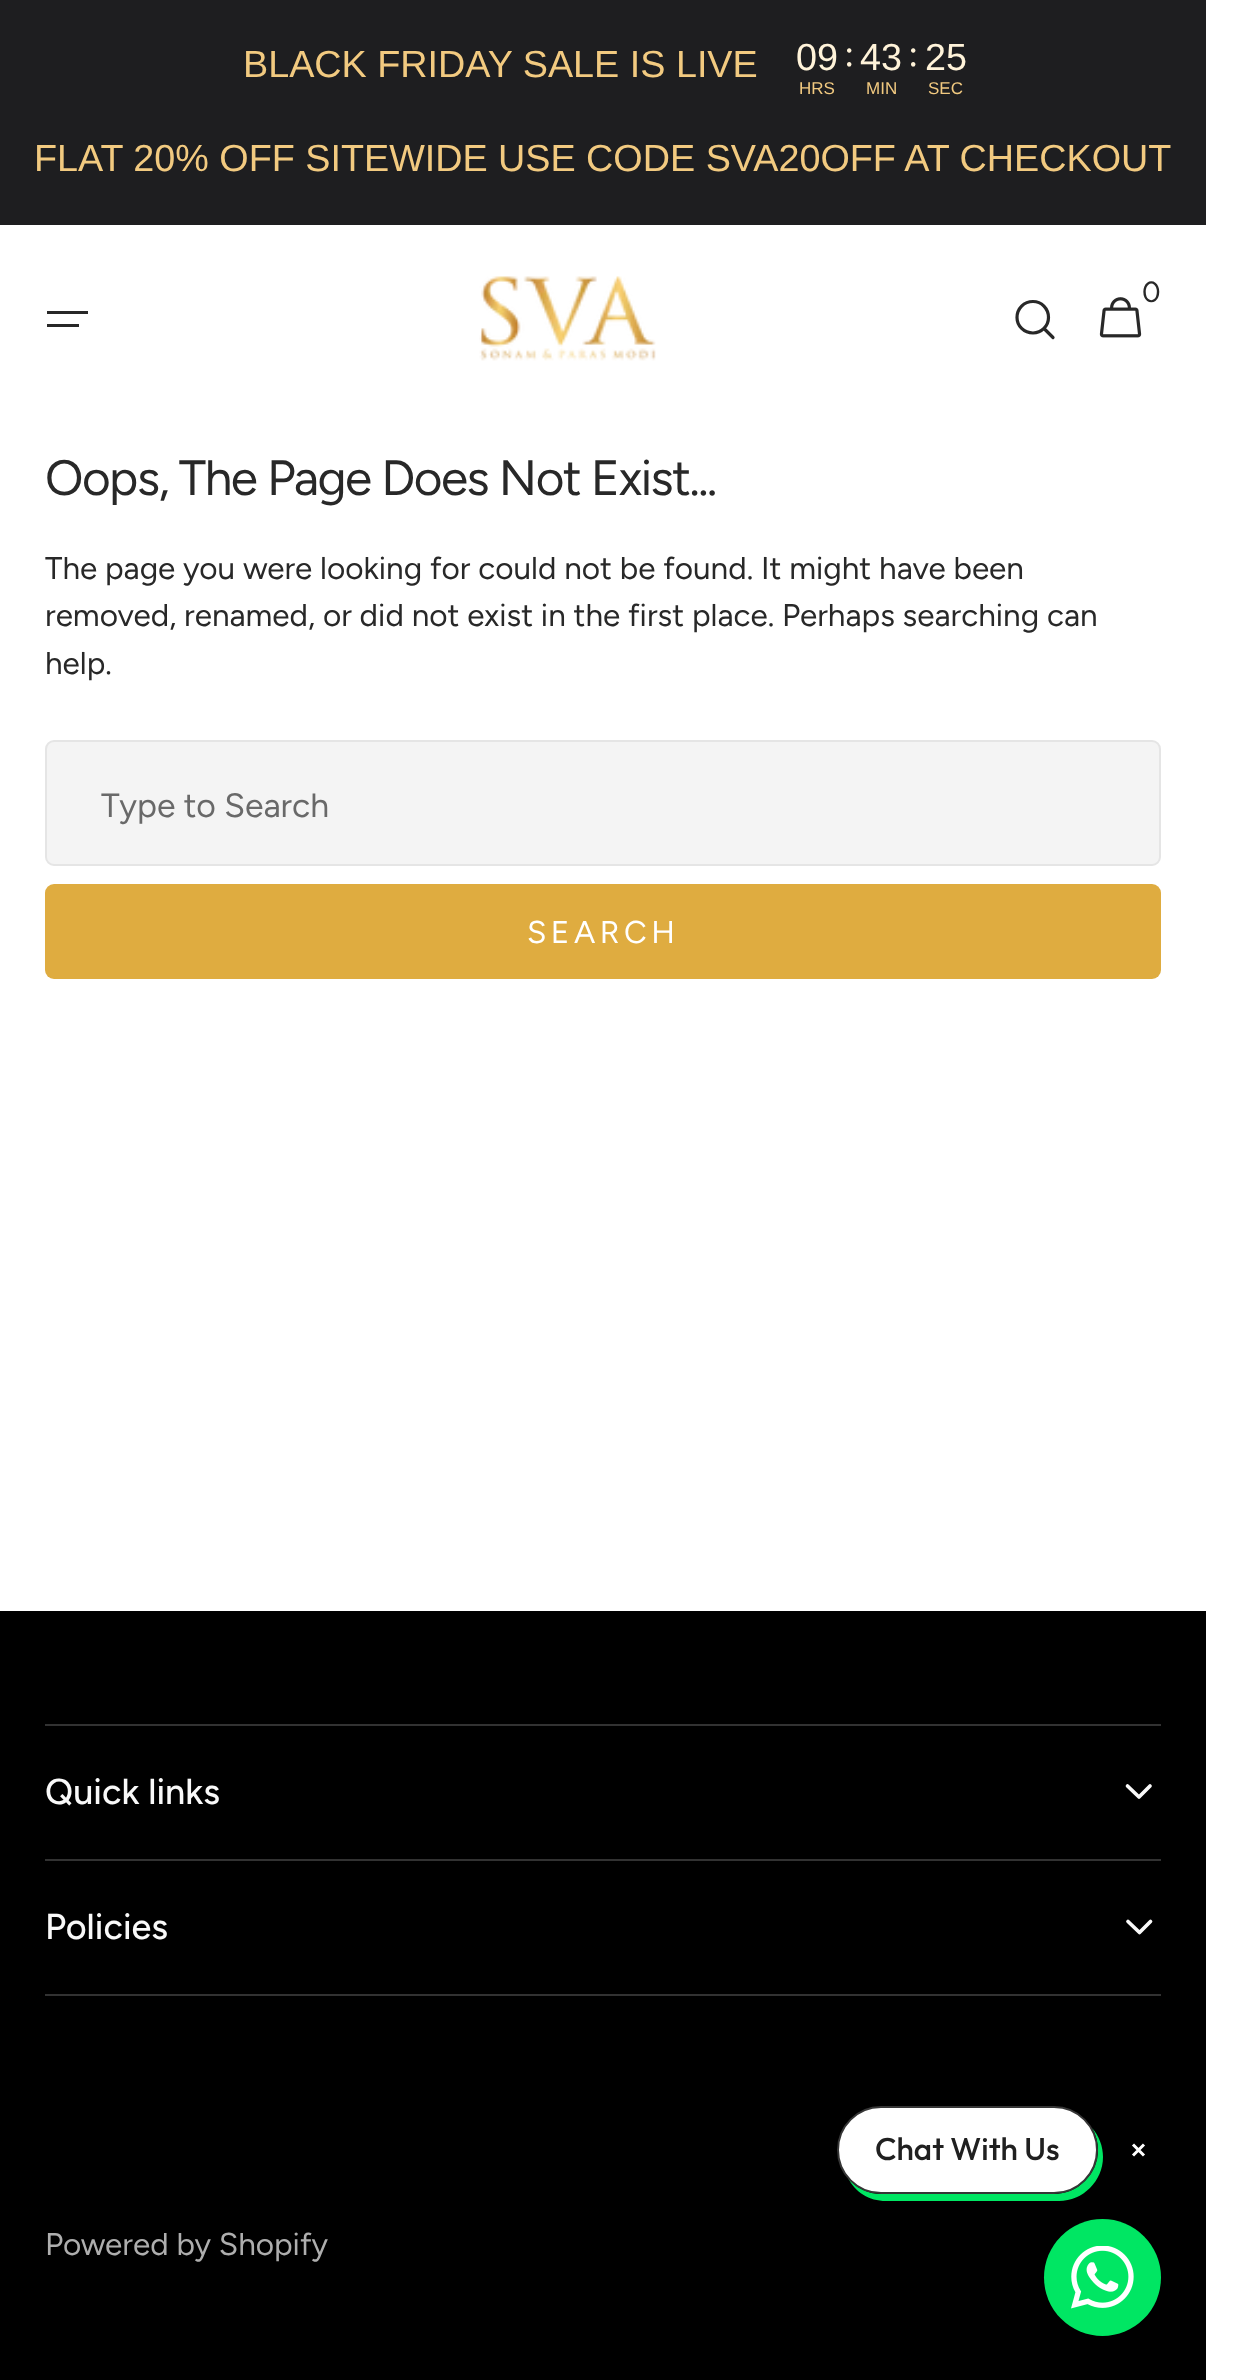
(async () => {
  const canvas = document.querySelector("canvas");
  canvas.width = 1239;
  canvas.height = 2380;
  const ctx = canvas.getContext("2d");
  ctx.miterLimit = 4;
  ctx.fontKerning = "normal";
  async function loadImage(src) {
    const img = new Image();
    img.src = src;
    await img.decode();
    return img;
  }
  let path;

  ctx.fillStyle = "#ffffff";
  ctx.fillRect(0, 0, 1239, 2380);
  ctx.fillStyle = "#1e1e20";
  ctx.fillRect(0, 0, 1206, 225);
  ctx.drawImage(await loadImage("img/1.png"), 479, 276, 177, 85);
  ctx.drawImage(await loadImage("img/2.png"), 1099, 297, 43, 41);
  path = new Path2D("M1033 333C1041.5 333 1048.5 326 1048.5 317.5C1048.5 308.5 1041.5 301.5 1033 301.5C1024 301.5 1017 308.5 1017 317.5C1017 326 1024 333 1033 333ZM1044 328.5L1053 337.5");
  ctx.strokeStyle = "#282828";
  ctx.lineWidth = 3.2;
  ctx.lineCap = "round";
  ctx.lineJoin = "round";
  ctx.stroke(path);
  ctx.fillStyle = "#282828";
  ctx.fillRect(47, 311, 41, 3);
  ctx.fillRect(47, 324, 32, 3);
  ctx.fillStyle = "#f4f4f4";
  ctx.beginPath();
  ctx.roundRect(46, 741, 1114, 124, 8);
  ctx.fill();
  ctx.strokeStyle = "#e5e5e5";
  ctx.lineWidth = 2;
  ctx.lineJoin = "miter";
  ctx.stroke();
  ctx.fillStyle = "#dfac40";
  ctx.beginPath();
  ctx.roundRect(45, 884, 1116, 95, 9);
  ctx.fill();
  for (const [x, y, w, h, color] of [
    [0, 1611, 1206, 769, "#000000"],
    [45, 1724, 1116, 2, "#323232"],
    [45, 1859, 1116, 2, "#323232"],
  ]) {
    ctx.fillStyle = color;
    ctx.fillRect(x, y, w, h);
  }
  path = new Path2D("M1150 1786L1139 1797L1127.5 1786");
  ctx.strokeStyle = "#f9f9f9";
  ctx.lineWidth = 3.7;
  ctx.lineJoin = "round";
  ctx.stroke(path);
  ctx.fillRect(45, 1994, 1116, 2);
  path = new Path2D("M1150.5 1921.5L1139.5 1932.5L1128 1921.5");
  ctx.stroke(path);
  ctx.fillStyle = "#00e663";
  path = new Path2D("M848 2178C855 2192 869 2201 886 2201H1059C1083 2201 1103 2181 1103 2157C1103 2146 1099 2136 1092 2128C1096 2135 1098 2142 1098 2150C1098 2174 1078 2194 1054 2194H881C868 2194 856 2188 848 2178Z");
  ctx.fill(path);
  ctx.fillStyle = "#ffffff";
  ctx.beginPath();
  ctx.roundRect(838, 2107, 259, 86, 43);
  ctx.fill();
  ctx.strokeStyle = "#363636";
  ctx.lineWidth = 2;
  ctx.lineJoin = "miter";
  ctx.stroke();
  path = new Path2D("M1133 2144.5L1144 2155.5M1133 2155.5L1144 2144.5");
  ctx.strokeStyle = "#ffffff";
  ctx.lineWidth = 3;
  ctx.lineCap = "butt";
  ctx.stroke(path);
  ctx.fillStyle = "#00e663";
  ctx.beginPath();
  ctx.arc(1102.5, 2277.5, 58.5, 0, Math.PI * 2);
  ctx.fill();
  ctx.drawImage(await loadImage("img/3.png"), 1071, 2246, 63, 63);
  ctx.font = "37.75px Liberation Sans";
  ctx.fillStyle = "#f2ca80";
  ctx.fillText("BLACK FRIDAY SALE IS LIVE", 243, 77);
  ctx.fillStyle = "#fff3d9";
  ctx.fillText("09", 796, 70);
  ctx.font = "37.75px Liberation Serif";
  ctx.fillText(":", 844, 66);
  ctx.font = "37.75px Liberation Sans";
  ctx.fillText("43", 860, 70);
  ctx.font = "37.75px Liberation Serif";
  ctx.fillText(":", 908, 66);
  ctx.font = "37.75px Liberation Sans";
  ctx.fillText("25", 925, 70);
  ctx.font = "17px Liberation Sans";
  ctx.fillStyle = "#f2ca80";
  for (const [text, x, y] of [
    ["HRS", 799, 94],
    ["MIN", 866, 94],
    ["SEC", 928, 94],
  ]) {
    ctx.fillText(text, x, y);
  }
  ctx.font = "37.75px Liberation Sans";
  ctx.fillText("FLAT 20% OFF SITEWIDE", 34, 171);
  ctx.fillText("USE CODE SVA20OFF AT CHECKOUT", 498, 171);
  ctx.font = "29px Figtree";
  ctx.fillStyle = "#282828";
  ctx.fillText("0", 1142, 302);
  ctx.letterSpacing = "-1.5px";
  ctx.font = "49.5px Figtree";
  ctx.fillText("Oops, The Page Does Not Exist...", 45, 495);
  ctx.letterSpacing = "0px";
  ctx.font = "31.5px Figtree";
  for (const [text, x, y] of [
    ["The page you were looking for could not be found. It might have been", 45, 579],
    ["removed, renamed, or did not exist in the first place. Perhaps searching can", 45, 626],
    ["help.", 45, 674],
  ]) {
    ctx.fillText(text, x, y);
  }
  ctx.font = "33.75px Figtree";
  ctx.fillStyle = "#696969";
  ctx.fillText("Type to Search", 101, 817);
  ctx.letterSpacing = "4.5px";
  ctx.font = "31.5px Figtree";
  ctx.fillStyle = "#ffffff";
  ctx.fillText("SEARCH", 527, 943);
  ctx.letterSpacing = "0px";
  ctx.font = "500 36px Figtree";
  ctx.fillStyle = "#f9f9f9";
  ctx.fillText("Quick links", 45, 1804);
  ctx.fillText("Policies", 45, 1939);
  ctx.font = "31.5px Figtree";
  ctx.fillStyle = "#aeaeae";
  ctx.fillText("Powered by Shopify", 45, 2255);
  ctx.font = "500 31.5px Outfit";
  ctx.fillStyle = "#202020";
  ctx.fillText("Chat With Us", 875, 2160);
})();
